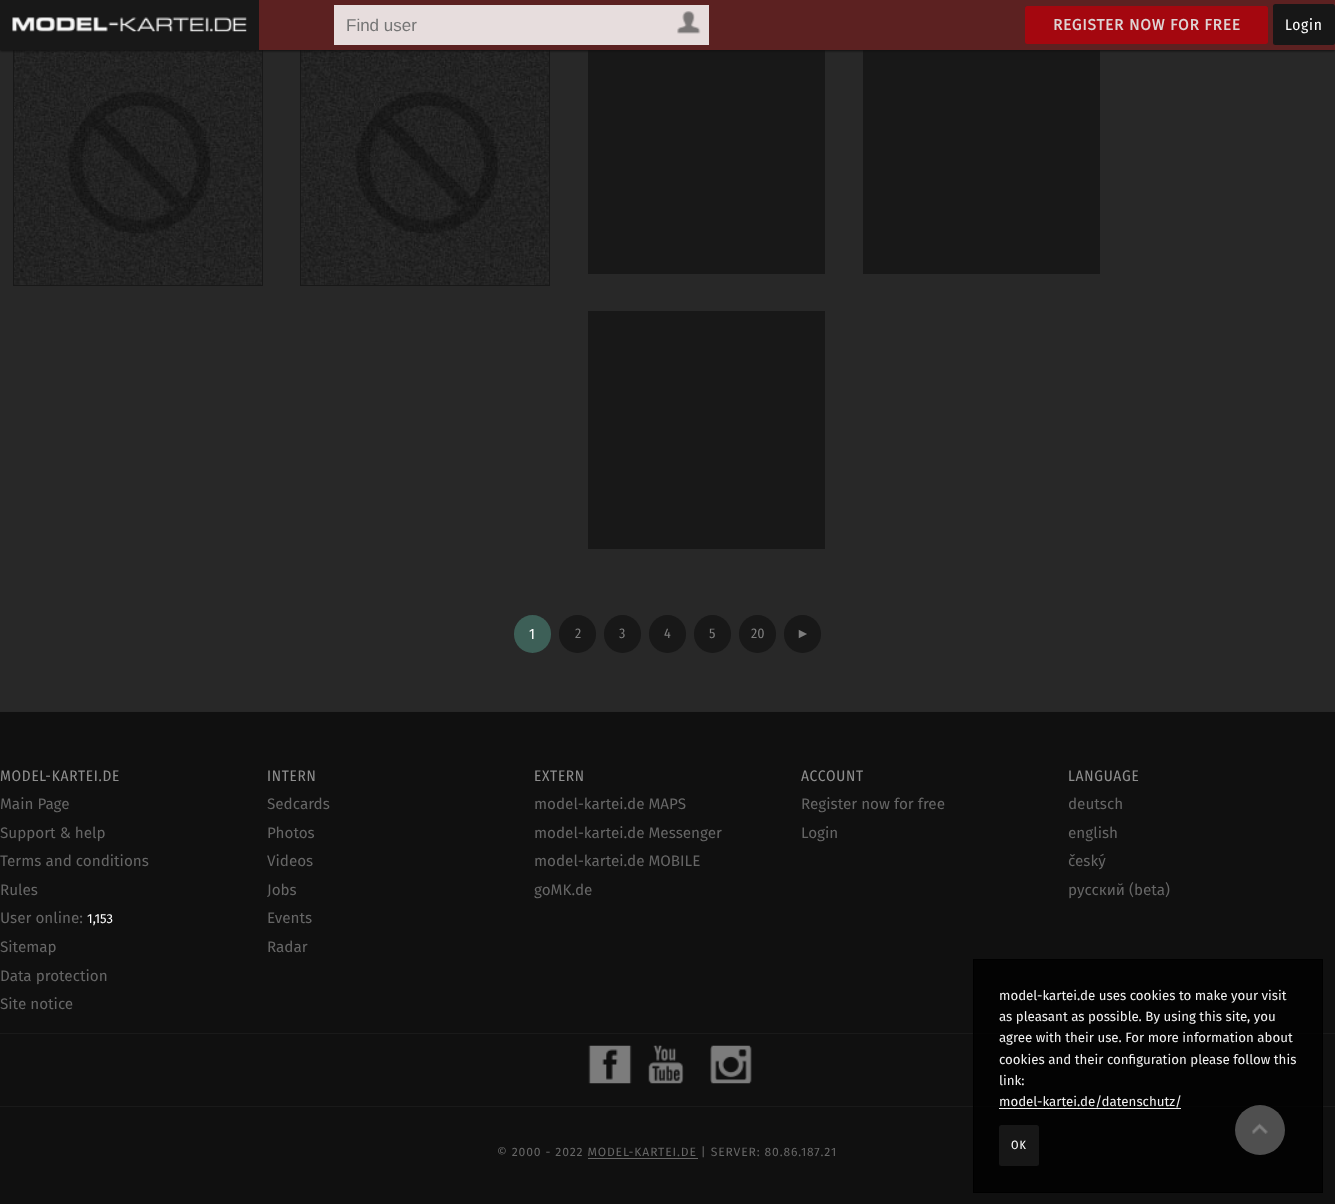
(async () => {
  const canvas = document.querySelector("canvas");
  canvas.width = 1335;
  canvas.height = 1204;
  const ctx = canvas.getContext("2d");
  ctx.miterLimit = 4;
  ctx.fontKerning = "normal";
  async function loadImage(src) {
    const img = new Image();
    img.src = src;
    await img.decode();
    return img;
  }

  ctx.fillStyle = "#101010";
  ctx.fillRect(0, 0, 1335, 1204);
  ctx.fillStyle = "#030303";
  ctx.fillRect(974, 960, 348, 232);
  ctx.fillStyle = "#282828";
  ctx.fillRect(0, 50, 1335, 661);
  ctx.drawImage(await loadImage("img/3.png"), 14, 50, 248, 235);
  ctx.strokeStyle = "#181818";
  ctx.strokeRect(13.5, 36.5, 249, 249);
  ctx.drawImage(await loadImage("img/4.png"), 301, 50, 248, 235);
  ctx.strokeRect(300.5, 36.5, 249, 249);
  ctx.fillStyle = "#181818";
  ctx.fillRect(588, 50, 237, 224);
  ctx.fillRect(863, 50, 237, 224);
  ctx.fillStyle = "#101010";
  ctx.filter = "blur(1px)";
  ctx.beginPath();
  ctx.rect(0, 1, 1335, 50);
  ctx.fill();
  ctx.filter = "none";
  ctx.fillStyle = "#5c2121";
  ctx.fillRect(259, 0, 1076, 50);
  ctx.fillStyle = "#181818";
  ctx.fillRect(0, 0, 259, 50);
  ctx.drawImage(await loadImage("img/1.png"), 12, 17, 235, 15);
  ctx.fillStyle = "#e7dddd";
  ctx.fillRect(334, 5, 375, 40);
  ctx.drawImage(await loadImage("img/2.png"), 677, 11, 24, 23);
  ctx.fillStyle = "#a4070f";
  ctx.beginPath();
  ctx.roundRect(1025, 6, 243, 38, 2.5);
  ctx.fill();
  ctx.fillStyle = "#171717";
  ctx.beginPath();
  ctx.roundRect(1273, 4, 62, 41, 2.5);
  ctx.fill();
  ctx.fillStyle = "#181818";
  ctx.fillRect(588, 311, 237, 238);
  ctx.fillStyle = "#3d5f57";
  ctx.beginPath();
  ctx.roundRect(514, 615, 37, 38, 18.5);
  ctx.fill();
  ctx.fillStyle = "#181818";
  ctx.beginPath();
  ctx.roundRect(559, 615, 37, 38, 18.5);
  ctx.fill();
  ctx.beginPath();
  ctx.roundRect(604, 615, 37, 38, 18.5);
  ctx.fill();
  ctx.beginPath();
  ctx.roundRect(649, 615, 37, 38, 18.5);
  ctx.fill();
  ctx.beginPath();
  ctx.roundRect(694, 615, 37, 38, 18.5);
  ctx.fill();
  ctx.beginPath();
  ctx.roundRect(739, 615, 37, 38, 18.5);
  ctx.fill();
  ctx.beginPath();
  ctx.roundRect(784, 615, 37, 38, 18.5);
  ctx.fill();
  for (const [x, y, w, h, color] of [
    [0, 711, 1335, 1, "#272727"],
    [0, 1033, 1335, 1, "#1a1a1a"],
    [973, 1033, 350, 1, "#050505"],
    [0, 1106, 1335, 1, "#1a1a1a"],
    [973, 1106, 350, 1, "#050505"],
  ]) {
    ctx.fillStyle = color;
    ctx.fillRect(x, y, w, h);
  }
  ctx.drawImage(await loadImage("img/5.png"), 588, 1045, 44, 39);
  ctx.drawImage(await loadImage("img/6.png"), 648, 1045, 36, 39);
  ctx.drawImage(await loadImage("img/7.png"), 710, 1045, 42, 39);
  ctx.fillStyle = "#666666";
  ctx.fillRect(588, 1158, 110, 1);
  ctx.strokeStyle = "#000000";
  ctx.strokeRect(973.5, 959.5, 349, 233);
  ctx.fillStyle = "#f1f1f1";
  ctx.fillRect(999, 1108, 182, 1);
  ctx.fillStyle = "#171717";
  ctx.beginPath();
  ctx.roundRect(999, 1125, 40, 41, 2.5);
  ctx.fill();
  ctx.fillStyle = "#4f4f4f";
  ctx.beginPath();
  ctx.arc(1260, 1130, 25, 0, Math.PI * 2);
  ctx.fill();
  ctx.drawImage(await loadImage("img/8.png"), 1252, 1123, 16, 11);
  ctx.font = "17px Liberation Sans";
  ctx.fillStyle = "#757575";
  ctx.fillText("Find user", 346, 31);
  ctx.letterSpacing = "0.75px";
  ctx.font = "bold 15.4px Fira Sans";
  ctx.fillStyle = "#ded3d3";
  ctx.fillText("REGISTER NOW FOR FREE", 1053, 30);
  ctx.font = "15.4px Fira Sans Condensed";
  ctx.fillStyle = "#ffffff";
  ctx.fillText("Login", 1285, 30);
  ctx.letterSpacing = "0px";
  ctx.font = "15px Fira Sans Condensed";
  ctx.fillText("1", 529, 639);
  ctx.font = "14px Fira Sans Condensed";
  ctx.fillStyle = "#7d7d7d";
  for (const [text, x, y] of [
    ["2", 575, 638],
    ["3", 619, 638],
    ["4", 664, 638],
    ["5", 709, 638],
    ["20", 751, 638],
  ]) {
    ctx.fillText(text, x, y);
  }
  ctx.font = "14px Liberation Serif";
  ctx.fillText("►", 796, 638);
  ctx.letterSpacing = "0.75px";
  ctx.font = "15.25px Fira Sans Condensed";
  ctx.fillStyle = "#8e8e8e";
  ctx.fillText("MODEL-KARTEI.DE", 0, 781);
  ctx.letterSpacing = "0px";
  ctx.font = "15.25px Fira Sans";
  ctx.fillStyle = "#666666";
  for (const [text, x, y] of [
    ["Main Page", 0, 809],
    ["Support & help", 0, 838],
    ["Terms and conditions", 0, 866],
    ["Rules", 0, 895],
    ["User online:", 0, 923],
  ]) {
    ctx.fillText(text, x, y);
  }
  ctx.font = "13px Fira Sans";
  ctx.fillStyle = "#ffffff";
  ctx.fillText("1,153", 87, 923);
  ctx.font = "15.25px Fira Sans";
  ctx.fillStyle = "#666666";
  for (const [text, x, y] of [
    ["Sitemap", 0, 952],
    ["Data protection", 0, 981],
    ["Site notice", 0, 1009],
  ]) {
    ctx.fillText(text, x, y);
  }
  ctx.letterSpacing = "0.75px";
  ctx.font = "15.25px Fira Sans Condensed";
  ctx.fillStyle = "#8e8e8e";
  ctx.fillText("INTERN", 267, 781);
  ctx.letterSpacing = "0px";
  ctx.font = "15.25px Fira Sans";
  ctx.fillStyle = "#666666";
  for (const [text, x, y] of [
    ["Sedcards", 267, 809],
    ["Photos", 267, 838],
    ["Videos", 267, 866],
    ["Jobs", 267, 895],
    ["Events", 267, 923],
    ["Radar", 267, 952],
  ]) {
    ctx.fillText(text, x, y);
  }
  ctx.letterSpacing = "0.75px";
  ctx.font = "15.25px Fira Sans Condensed";
  ctx.fillStyle = "#8e8e8e";
  ctx.fillText("EXTERN", 534, 781);
  ctx.letterSpacing = "0px";
  ctx.font = "15.25px Fira Sans";
  ctx.fillStyle = "#666666";
  for (const [text, x, y] of [
    ["model-kartei.de MAPS", 534, 809],
    ["model-kartei.de Messenger", 534, 838],
    ["model-kartei.de MOBILE", 534, 866],
    ["goMK.de", 534, 895],
  ]) {
    ctx.fillText(text, x, y);
  }
  ctx.letterSpacing = "0.75px";
  ctx.font = "15.25px Fira Sans Condensed";
  ctx.fillStyle = "#8e8e8e";
  ctx.fillText("ACCOUNT", 801, 781);
  ctx.letterSpacing = "0px";
  ctx.font = "15.25px Fira Sans";
  ctx.fillStyle = "#666666";
  ctx.fillText("Register now for free", 801, 809);
  ctx.fillText("Login", 801, 838);
  ctx.letterSpacing = "0.75px";
  ctx.font = "15.25px Fira Sans Condensed";
  ctx.fillStyle = "#8e8e8e";
  ctx.fillText("LANGUAGE", 1068, 781);
  ctx.letterSpacing = "0px";
  ctx.font = "15.25px Fira Sans";
  ctx.fillStyle = "#666666";
  for (const [text, x, y] of [
    ["deutsch", 1068, 809],
    ["english", 1068, 838],
    ["český", 1068, 866],
    ["русский (beta)", 1068, 895],
  ]) {
    ctx.fillText(text, x, y);
  }
  ctx.letterSpacing = "0.85px";
  ctx.font = "12.15px Fira Sans";
  ctx.fillText("© 2000 - 2022 MODEL-KARTEI.DE | SERVER: 80.86.187.21", 497, 1156);
  ctx.letterSpacing = "0px";
  ctx.font = "13.3px Fira Sans";
  ctx.fillStyle = "#f1f1f1";
  for (const [text, x, y] of [
    ["model-kartei.de uses cookies to make your visit", 999, 1000],
    ["as pleasant as possible. By using this site, you", 999, 1021],
    ["agree with their use. For more information about", 999, 1042],
    ["cookies and their configuration please follow this", 999, 1064],
    ["link:", 999, 1085],
    ["model-kartei.de/datenschutz/", 999, 1106],
  ]) {
    ctx.fillText(text, x, y);
  }
  ctx.letterSpacing = "1px";
  ctx.font = "12px Fira Sans Condensed";
  ctx.fillStyle = "#ffffff";
  ctx.fillText("OK", 1011, 1149);
})();
